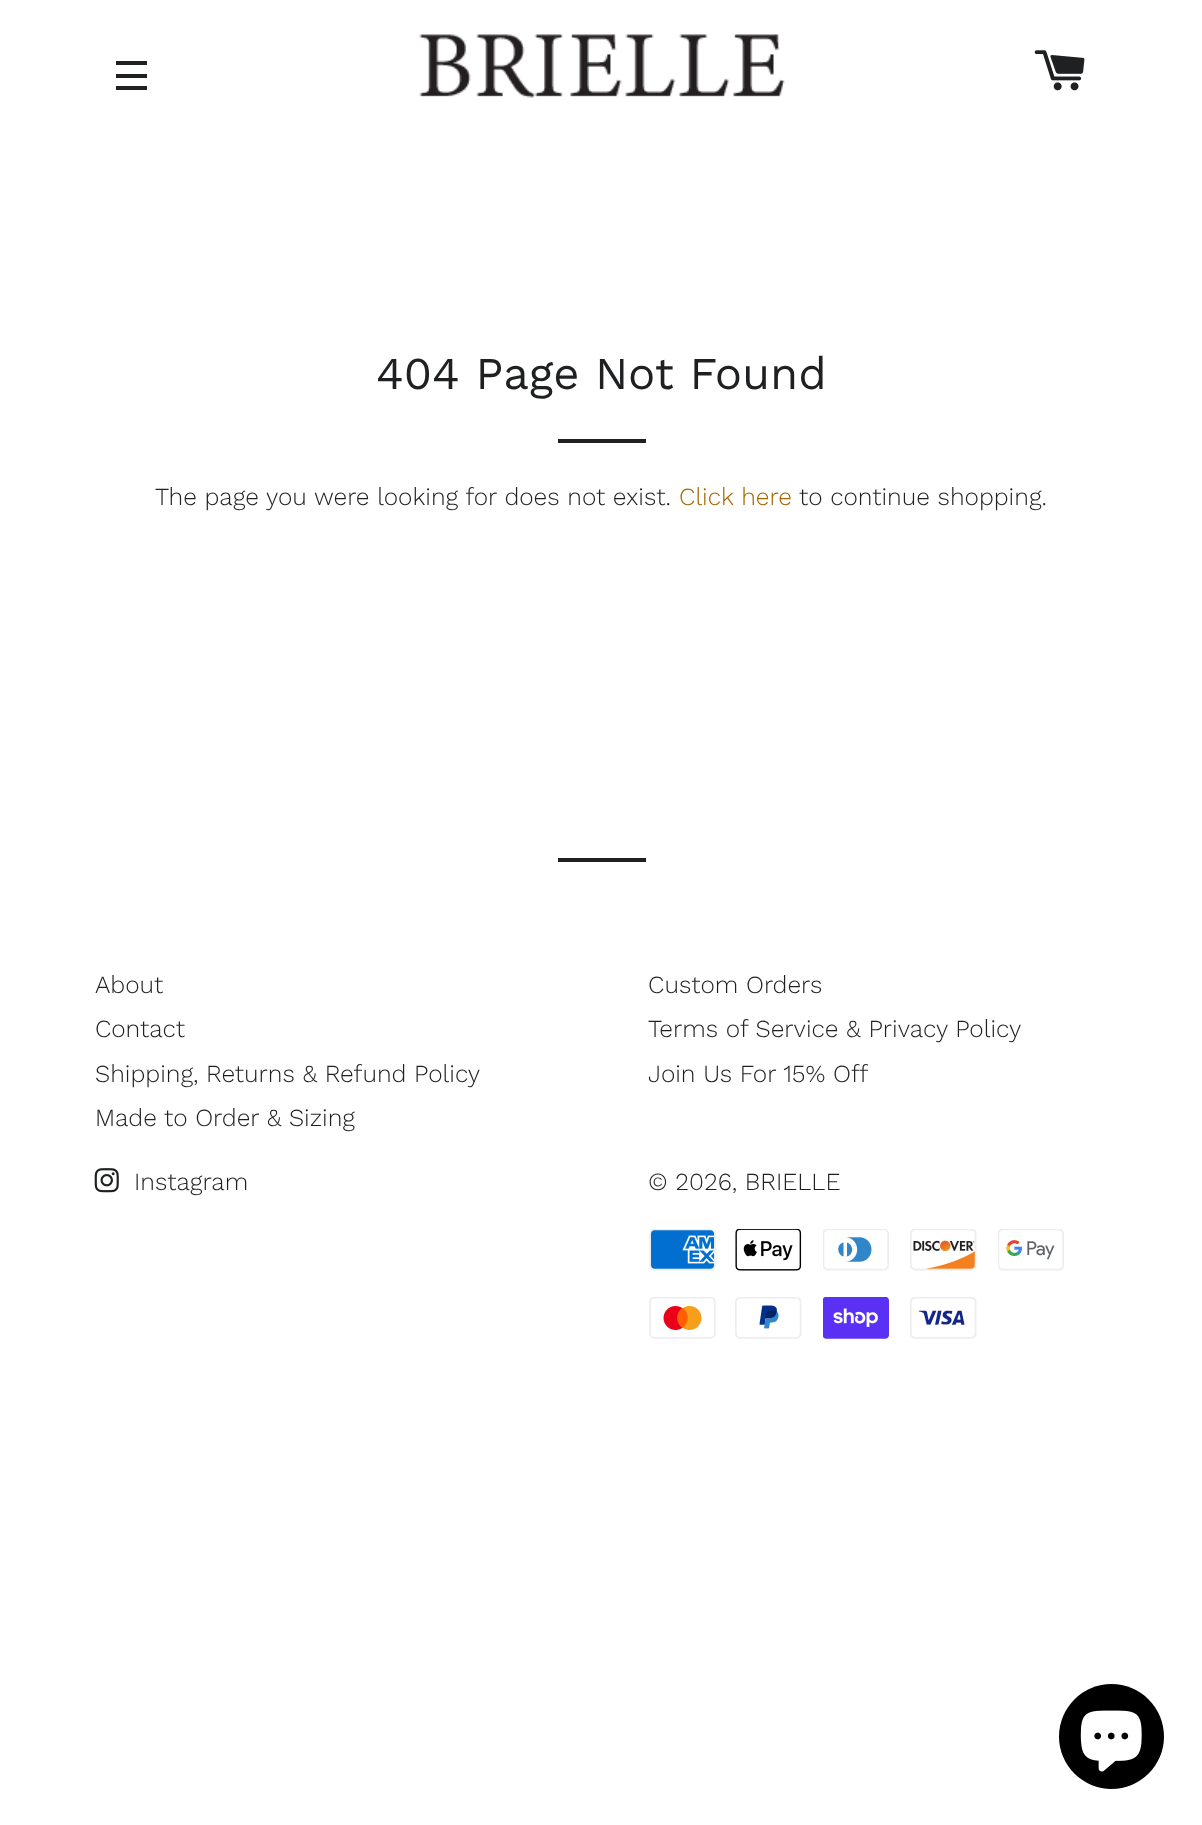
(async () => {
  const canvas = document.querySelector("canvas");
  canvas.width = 1202;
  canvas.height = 1825;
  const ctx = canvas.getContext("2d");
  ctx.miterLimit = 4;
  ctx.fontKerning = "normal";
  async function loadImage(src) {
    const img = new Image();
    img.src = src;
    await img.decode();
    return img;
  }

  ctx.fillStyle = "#ffffff";
  ctx.fillRect(0, 0, 1202, 1825);
  for (const [x, y, w, h, color] of [
    [116, 61, 31, 4, "#1f2021"],
    [116, 74, 31, 4, "#1f2021"],
    [116, 86, 31, 4, "#1f2021"],
  ]) {
    ctx.fillStyle = color;
    ctx.fillRect(x, y, w, h);
  }
  ctx.drawImage(await loadImage("img/1.png"), 419, 34, 366, 64);
  ctx.drawImage(await loadImage("img/2.png"), 1034, 50, 51, 41);
  ctx.fillRect(558, 439, 88, 4);
  ctx.fillRect(558, 858, 88, 4);
  ctx.drawImage(await loadImage("img/3.png"), 94, 1168, 25, 25);
  ctx.drawImage(await loadImage("img/4.png"), 649, 1229, 67, 42);
  ctx.drawImage(await loadImage("img/5.png"), 735, 1229, 67, 42);
  ctx.drawImage(await loadImage("img/6.png"), 823, 1229, 66, 42);
  ctx.drawImage(await loadImage("img/7.png"), 910, 1229, 67, 42);
  ctx.drawImage(await loadImage("img/8.png"), 998, 1229, 66, 42);
  ctx.drawImage(await loadImage("img/9.png"), 649, 1297, 67, 42);
  ctx.drawImage(await loadImage("img/10.png"), 735, 1297, 67, 42);
  ctx.drawImage(await loadImage("img/11.png"), 823, 1297, 66, 42);
  ctx.drawImage(await loadImage("img/12.png"), 910, 1297, 67, 42);
  ctx.fillStyle = "#000000";
  ctx.beginPath();
  ctx.arc(1111.5, 1736.5, 52.5, 0, Math.PI * 2);
  ctx.fill();
  ctx.drawImage(await loadImage("img/13.png"), 1080, 1710, 62, 62);
  ctx.font = "45.5px Work Sans";
  ctx.fillStyle = "#1f2021";
  ctx.fillText("404 Page Not Found", 376, 389);
  ctx.font = "300 24.5px Work Sans";
  ctx.fillText("The page you were looking for does not exist.", 155, 505);
  ctx.fillStyle = "#a56600";
  ctx.fillText("Click here", 679, 505);
  ctx.fillStyle = "#1f2021";
  for (const [text, x, y] of [
    ["to continue shopping.", 799, 505],
    ["About", 95, 993],
    ["Contact", 95, 1037],
    ["Shipping, Returns & Refund Policy", 95, 1082],
    ["Made to Order & Sizing", 95, 1126],
    ["Custom Orders", 648, 993],
    ["Terms of Service & Privacy Policy", 648, 1037],
    ["Join Us For 15% Off", 648, 1082],
    ["Instagram", 134, 1190],
    ["© 2026, BRIELLE", 648, 1190],
  ]) {
    ctx.fillText(text, x, y);
  }
})();
